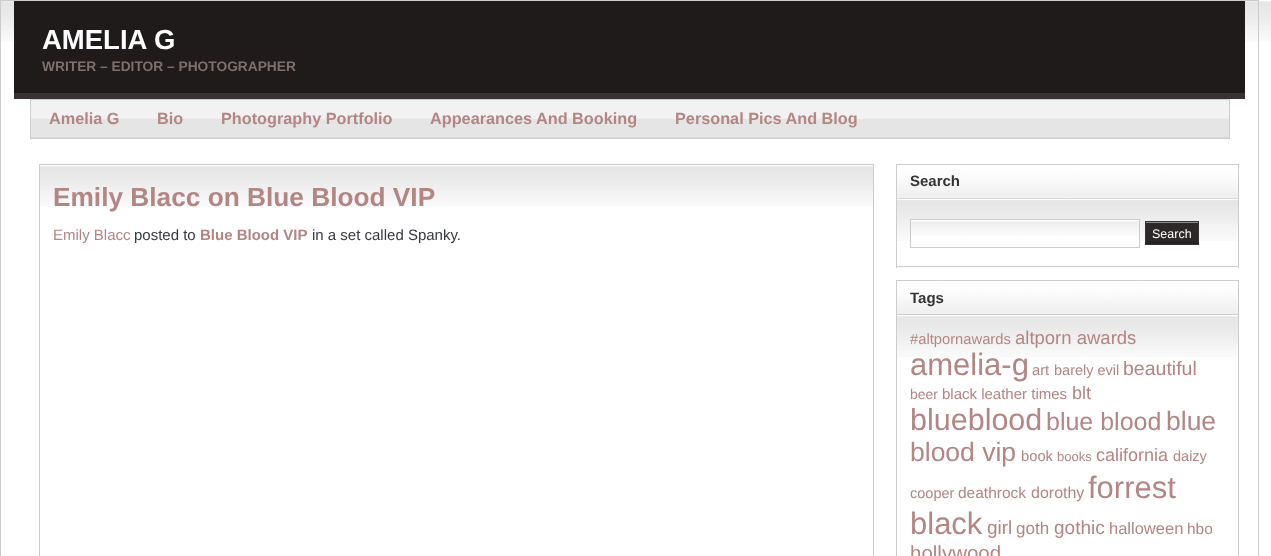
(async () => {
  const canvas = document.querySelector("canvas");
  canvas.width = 1271;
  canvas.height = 556;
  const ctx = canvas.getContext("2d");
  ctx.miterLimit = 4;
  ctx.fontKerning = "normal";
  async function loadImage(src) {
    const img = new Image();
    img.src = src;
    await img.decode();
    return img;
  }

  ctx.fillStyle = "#ffffff";
  ctx.fillRect(0, 0, 1271, 556);
  ctx.drawImage(await loadImage("img/1.png"), 1, 1, 1270, 41);
  ctx.strokeStyle = "#cccccc";
  ctx.strokeRect(0.5, 0.5, 1258, 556);
  for (const [x, y, w, h, color] of [
    [14, 1, 1231, 92, "#1e1b1a"],
    [14, 93, 1231, 6, "#383332"],
    [31, 137, 1198, 1, "#cccccc"],
  ]) {
    ctx.fillStyle = color;
    ctx.fillRect(x, y, w, h);
  }
  ctx.drawImage(await loadImage("img/2.png"), 31, 100, 1198, 38);
  ctx.strokeRect(30.5, 99.5, 1199, 39);
  ctx.drawImage(await loadImage("img/3.png"), 40, 166, 833, 41);
  ctx.strokeRect(39.5, 164.5, 834, 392);
  ctx.drawImage(await loadImage("img/4.png"), 897, 165, 341, 33);
  ctx.strokeRect(896.5, 164.5, 342, 34);
  ctx.drawImage(await loadImage("img/5.png"), 896, 198, 343, 43);
  for (const [x, y, w, h, color] of [
    [1238, 199, 1, 69, "#cccccc"],
    [896, 266, 343, 1, "#cccccc"],
    [896, 199, 1, 69, "#cccccc"],
    [911, 220, 228, 21, "#ffffff"],
  ]) {
    ctx.fillStyle = color;
    ctx.fillRect(x, y, w, h);
  }
  ctx.drawImage(await loadImage("img/6.png"), 911, 221, 228, 15);
  ctx.strokeRect(910.5, 219.5, 229, 28);
  ctx.drawImage(await loadImage("img/7.png"), 1146, 222, 52, 22);
  ctx.strokeStyle = "#333333";
  ctx.strokeRect(1145.5, 221.5, 53, 23);
  ctx.drawImage(await loadImage("img/8.png"), 897, 281, 341, 33);
  ctx.strokeStyle = "#cccccc";
  ctx.strokeRect(896.5, 280.5, 342, 34);
  ctx.drawImage(await loadImage("img/9.png"), 897, 316, 341, 41);
  ctx.fillStyle = "#cccccc";
  ctx.fillRect(1238, 315, 1, 241);
  ctx.fillRect(896, 315, 1, 241);
  ctx.font = "bold 27.5px Liberation Sans";
  ctx.fillStyle = "#ffffff";
  ctx.fillText("AMELIA G", 42, 49);
  ctx.font = "bold 13.75px Liberation Sans";
  ctx.fillStyle = "#7d716d";
  ctx.fillText("WRITER – EDITOR – PHOTOGRAPHER", 42, 71);
  ctx.font = "bold 16.25px Liberation Sans";
  ctx.fillStyle = "#b38583";
  for (const [text, x, y] of [
    ["Amelia G", 49, 124],
    ["Bio", 157, 124],
    ["Photography Portfolio", 221, 124],
    ["Appearances And Booking", 430, 124],
    ["Personal Pics And Blog", 675, 124],
  ]) {
    ctx.fillText(text, x, y);
  }
  ctx.font = "bold 26.25px Liberation Sans";
  ctx.fillText("Emily Blacc on Blue Blood VIP", 53, 206);
  ctx.font = "15px Liberation Sans";
  ctx.fillText("Emily Blacc", 53, 240);
  ctx.fillStyle = "#35383d";
  ctx.fillText("posted to", 134, 240);
  ctx.font = "bold 15px Liberation Sans";
  ctx.fillStyle = "#b38583";
  ctx.fillText("Blue Blood VIP", 200, 240);
  ctx.font = "15px Liberation Sans";
  ctx.fillStyle = "#35383d";
  ctx.fillText("in a set called Spanky.", 312, 240);
  ctx.font = "bold 15px Liberation Sans";
  ctx.fillStyle = "#333333";
  ctx.fillText("Search", 910, 186);
  ctx.font = "12.5px Liberation Sans";
  ctx.fillStyle = "#ffffff";
  ctx.fillText("Search", 1152, 238);
  ctx.font = "bold 15px Liberation Sans";
  ctx.fillStyle = "#333333";
  ctx.fillText("Tags", 910, 303);
  ctx.font = "14.75px Liberation Sans";
  ctx.fillStyle = "#b38583";
  ctx.fillText("#altpornawards", 910, 344);
  ctx.font = "18.5px Liberation Sans";
  ctx.fillText("altporn awards", 1015, 344);
  ctx.font = "31px Liberation Sans";
  ctx.fillText("amelia-g", 910, 375);
  ctx.font = "14.75px Liberation Sans";
  ctx.fillText("art", 1032, 375);
  ctx.font = "14.5px Liberation Sans";
  ctx.fillText("barely evil", 1054, 375);
  ctx.font = "19.5px Liberation Sans";
  ctx.fillText("beautiful", 1123, 375);
  ctx.font = "14px Liberation Sans";
  ctx.fillText("beer", 910, 399);
  ctx.font = "15px Liberation Sans";
  ctx.fillText("black leather times", 942, 399);
  ctx.font = "18px Liberation Sans";
  ctx.fillText("blt", 1072, 399);
  ctx.font = "30.5px Liberation Sans";
  ctx.fillText("blueblood", 910, 430);
  ctx.font = "25px Liberation Sans";
  ctx.fillText("blue blood", 1046, 430);
  ctx.font = "26.5px Liberation Sans";
  ctx.fillText("blue", 1166, 430);
  ctx.fillText("blood vip", 910, 461);
  ctx.font = "14.75px Liberation Sans";
  ctx.fillText("book", 1021, 461);
  ctx.font = "13px Liberation Sans";
  ctx.fillText("books", 1057, 461);
  ctx.font = "18px Liberation Sans";
  ctx.fillText("california", 1096, 461);
  ctx.font = "14.5px Liberation Sans";
  ctx.fillText("daizy", 1173, 461);
  ctx.fillText("cooper", 910, 498);
  ctx.font = "15.5px Liberation Sans";
  ctx.fillText("deathrock", 958, 498);
  ctx.font = "16px Liberation Sans";
  ctx.fillText("dorothy", 1031, 498);
  ctx.font = "31px Liberation Sans";
  ctx.fillText("forrest", 1088, 498);
  ctx.fillText("black", 910, 534);
  ctx.font = "19px Liberation Sans";
  ctx.fillText("girl", 987, 534);
  ctx.font = "17px Liberation Sans";
  ctx.fillText("goth", 1016, 534);
  ctx.font = "19px Liberation Sans";
  ctx.fillText("gothic", 1054, 534);
  ctx.font = "16.5px Liberation Sans";
  ctx.fillText("halloween", 1109, 534);
  ctx.font = "15.5px Liberation Sans";
  ctx.fillText("hbo", 1187, 534);
  ctx.font = "20.5px Liberation Sans";
  ctx.fillText("hollywood", 910, 560);
})();
